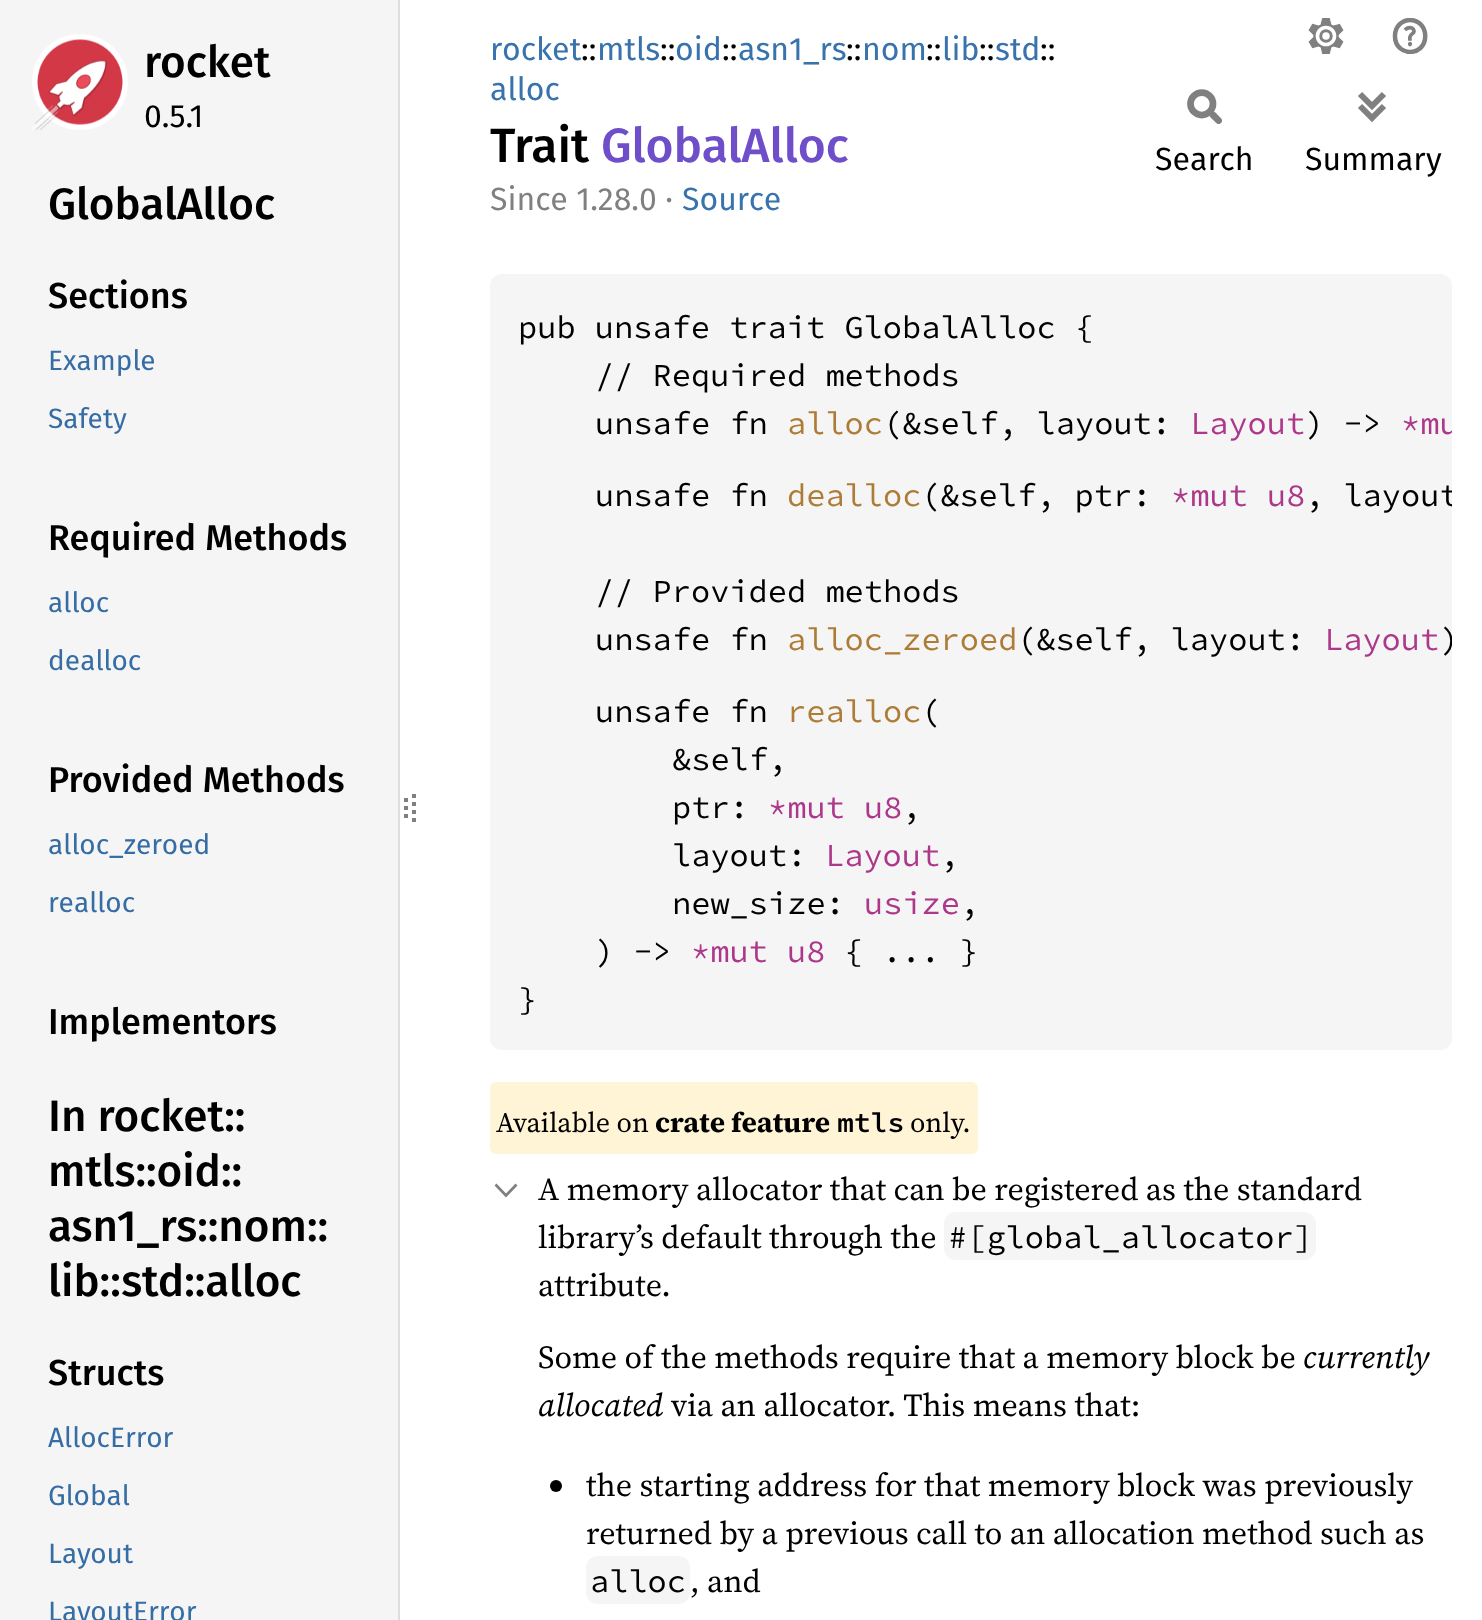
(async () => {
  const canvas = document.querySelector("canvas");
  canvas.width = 1482;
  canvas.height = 1620;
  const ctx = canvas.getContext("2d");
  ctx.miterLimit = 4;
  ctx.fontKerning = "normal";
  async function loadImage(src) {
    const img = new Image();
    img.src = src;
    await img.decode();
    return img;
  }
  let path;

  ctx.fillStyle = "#ffffff";
  ctx.fillRect(0, 0, 1482, 1620);
  ctx.fillStyle = "#f5f5f5";
  ctx.fillRect(0, 0, 398, 1620);
  ctx.fillStyle = "#dddddd";
  ctx.fillRect(398, 0, 2, 1620);
  ctx.drawImage(await loadImage("img/1.png"), 32, 34, 96, 96);
  path = new Path2D("M406 798V802M406 806V810M406 814V818");
  ctx.strokeStyle = "#808080";
  ctx.lineWidth = 4;
  ctx.stroke(path);
  path = new Path2D("M414 794V826");
  ctx.setLineDash([4, 4]);
  ctx.stroke(path);
  ctx.drawImage(await loadImage("img/2.png"), 1308, 18, 36, 36);
  ctx.drawImage(await loadImage("img/3.png"), 1392, 18, 36, 36);
  ctx.drawImage(await loadImage("img/4.png"), 1187, 89, 35, 35);
  ctx.drawImage(await loadImage("img/5.png"), 1358, 92, 28, 31);
  ctx.fillStyle = "#f5f5f5";
  ctx.beginPath();
  ctx.roundRect(490, 274, 962, 776, 12);
  ctx.fill();
  ctx.fillStyle = "#fff5d6";
  ctx.beginPath();
  ctx.roundRect(490, 1082, 488, 72, 6);
  ctx.fill();
  path = new Path2D("M495.5 1184.5L506 1195.5L516.5 1184.5");
  ctx.lineWidth = 2.7;
  ctx.setLineDash([]);
  ctx.stroke(path);
  ctx.fillStyle = "#f5f5f5";
  ctx.beginPath();
  ctx.roundRect(944, 1212, 372, 48, 12);
  ctx.fill();
  ctx.fillStyle = "#000000";
  ctx.beginPath();
  ctx.arc(556, 1486, 6, 0, Math.PI * 2);
  ctx.fill();
  ctx.fillStyle = "#f5f5f5";
  ctx.beginPath();
  ctx.roundRect(586, 1556, 104, 48, 12);
  ctx.fill();
  ctx.font = "500 44px Fira Sans";
  ctx.fillStyle = "#000000";
  ctx.fillText("rocket", 144, 77);
  ctx.font = "32px Fira Sans";
  ctx.fillText("0.5.1", 144, 127);
  ctx.font = "500 44px Fira Sans";
  ctx.fillText("GlobalAlloc", 48, 219);
  ctx.font = "500 36px Fira Sans";
  ctx.fillText("Sections", 48, 308);
  ctx.font = "28px Fira Sans";
  ctx.fillStyle = "#356da4";
  ctx.fillText("Example", 48, 370);
  ctx.fillText("Safety", 48, 428);
  ctx.font = "500 36px Fira Sans";
  ctx.fillStyle = "#000000";
  ctx.fillText("Required Methods", 48, 550);
  ctx.font = "28px Fira Sans";
  ctx.fillStyle = "#356da4";
  ctx.fillText("alloc", 48, 612);
  ctx.fillText("dealloc", 48, 670);
  ctx.font = "500 36px Fira Sans";
  ctx.fillStyle = "#000000";
  ctx.fillText("Provided Methods", 48, 792);
  ctx.font = "28px Fira Sans";
  ctx.fillStyle = "#356da4";
  ctx.fillText("alloc_zeroed", 48, 854);
  ctx.fillText("realloc", 48, 912);
  ctx.font = "500 36px Fira Sans";
  ctx.fillStyle = "#000000";
  ctx.fillText("Implementors", 48, 1034);
  ctx.font = "500 44px Fira Sans";
  for (const [text, x, y] of [
    ["In rocket::", 48, 1131],
    ["mtls::oid::", 48, 1186],
    ["asn1_rs::nom::", 48, 1241],
    ["lib::std::alloc", 48, 1296],
  ]) {
    ctx.fillText(text, x, y);
  }
  ctx.font = "500 36px Fira Sans";
  ctx.fillText("Structs", 48, 1385);
  ctx.font = "28px Fira Sans";
  ctx.fillStyle = "#356da4";
  for (const [text, x, y] of [
    ["AllocError", 48, 1447],
    ["Global", 48, 1505],
    ["Layout", 48, 1563],
    ["LayoutError", 48, 1621],
  ]) {
    ctx.fillText(text, x, y);
  }
  ctx.font = "32px Fira Sans";
  ctx.fillStyle = "#3873ad";
  ctx.fillText("rocket", 490, 60);
  ctx.fillStyle = "#000000";
  ctx.fillText("::", 581, 60);
  ctx.fillStyle = "#3873ad";
  ctx.fillText("mtls", 597, 60);
  ctx.fillStyle = "#000000";
  ctx.fillText("::", 660, 60);
  ctx.fillStyle = "#3873ad";
  ctx.fillText("oid", 675, 60);
  ctx.fillStyle = "#000000";
  ctx.fillText("::", 722, 60);
  ctx.fillStyle = "#3873ad";
  ctx.fillText("asn1_rs", 738, 60);
  ctx.fillStyle = "#000000";
  ctx.fillText("::", 846, 60);
  ctx.fillStyle = "#3873ad";
  ctx.fillText("nom", 862, 60);
  ctx.fillStyle = "#000000";
  ctx.fillText("::", 926, 60);
  ctx.fillStyle = "#3873ad";
  ctx.fillText("lib", 942, 60);
  ctx.fillStyle = "#000000";
  ctx.fillText("::", 979, 60);
  ctx.fillStyle = "#3873ad";
  ctx.fillText("std", 995, 60);
  ctx.fillStyle = "#000000";
  ctx.fillText("::", 1040, 60);
  ctx.fillStyle = "#3873ad";
  ctx.fillText("alloc", 490, 100);
  ctx.font = "500 48px Fira Sans";
  ctx.fillStyle = "#000000";
  ctx.fillText("Trait", 490, 162);
  ctx.fillStyle = "#6e4fc9";
  ctx.fillText("GlobalAlloc", 601, 162);
  ctx.font = "32px Fira Sans";
  ctx.fillStyle = "#000000";
  ctx.fillText("Search", 1155, 170);
  ctx.fillText("Summary", 1305, 170);
  ctx.fillStyle = "#808080";
  ctx.fillText("Since 1.28.0 ·", 490, 210);
  ctx.fillStyle = "#3873ad";
  ctx.fillText("Source", 682, 210);
  ctx.font = "32px Source Code Pro";
  ctx.fillStyle = "#000000";
  for (const [text, x, y] of [
    ["pub unsafe trait GlobalAlloc {", 518, 338],
    ["// Required methods", 595, 386],
    ["unsafe fn", 595, 434],
  ]) {
    ctx.fillText(text, x, y);
  }
  ctx.fillStyle = "#ad7c37";
  ctx.fillText("alloc", 787, 434);
  ctx.fillStyle = "#000000";
  ctx.fillText("(&self, layout:", 883, 434);
  ctx.fillStyle = "#ad378a";
  ctx.fillText("Layout", 1190, 434);
  ctx.fillStyle = "#000000";
  ctx.fillText(") ->", 1305, 434);
  ctx.save();
  ctx.beginPath();
  ctx.roundRect(490, 274, 962, 776, 12);
  ctx.clip();
  ctx.fillStyle = "#ad378a";
  ctx.fillText("*mu", 1401, 434);
  ctx.restore();
  ctx.fillText("unsafe fn", 595, 506);
  ctx.fillStyle = "#ad7c37";
  ctx.fillText("dealloc", 787, 506);
  ctx.fillStyle = "#000000";
  ctx.fillText("(&self, ptr:", 921, 506);
  ctx.fillStyle = "#ad378a";
  ctx.fillText("*mut u8", 1171, 506);
  ctx.save();
  ctx.beginPath();
  ctx.roundRect(490, 274, 962, 776, 12);
  ctx.clip();
  ctx.fillStyle = "#000000";
  ctx.fillText(", layout", 1305, 506);
  ctx.restore();
  ctx.fillStyle = "#000000";
  ctx.fillText("// Provided methods", 595, 602);
  ctx.fillText("unsafe fn", 595, 650);
  ctx.fillStyle = "#ad7c37";
  ctx.fillText("alloc_zeroed", 787, 650);
  ctx.fillStyle = "#000000";
  ctx.fillText("(&self, layout:", 1017, 650);
  ctx.fillStyle = "#ad378a";
  ctx.fillText("Layout", 1324, 650);
  ctx.save();
  ctx.beginPath();
  ctx.roundRect(490, 274, 962, 776, 12);
  ctx.clip();
  ctx.fillStyle = "#000000";
  ctx.fillText(")", 1440, 650);
  ctx.restore();
  ctx.fillStyle = "#000000";
  ctx.fillText("unsafe fn", 595, 722);
  ctx.fillStyle = "#ad7c37";
  ctx.fillText("realloc", 787, 722);
  ctx.fillStyle = "#000000";
  for (const [text, x, y] of [
    ["(", 921, 722],
    ["&self,", 672, 770],
    ["ptr:", 672, 818],
  ]) {
    ctx.fillText(text, x, y);
  }
  ctx.fillStyle = "#ad378a";
  ctx.fillText("*mut u8", 768, 818);
  ctx.fillStyle = "#000000";
  ctx.fillText(",", 902, 818);
  ctx.fillText("layout:", 672, 866);
  ctx.fillStyle = "#ad378a";
  ctx.fillText("Layout", 825, 866);
  ctx.fillStyle = "#000000";
  ctx.fillText(",", 940, 866);
  ctx.fillText("new_size:", 672, 914);
  ctx.fillStyle = "#ad378a";
  ctx.fillText("usize", 864, 914);
  ctx.fillStyle = "#000000";
  ctx.fillText(",", 960, 914);
  ctx.fillText(") ->", 595, 962);
  ctx.fillStyle = "#ad378a";
  ctx.fillText("*mut u8", 691, 962);
  ctx.fillStyle = "#000000";
  ctx.fillText("{ ... }", 844, 962);
  ctx.fillText("}", 518, 1010);
  ctx.font = "28px 'Source Serif 4'";
  ctx.fillText("Available on", 496, 1132);
  ctx.font = "bold 28px 'Source Serif 4'";
  ctx.fillText("crate feature", 655, 1132);
  ctx.font = "600 28px Source Code Pro";
  ctx.fillText("mtls", 837, 1132);
  ctx.font = "28px 'Source Serif 4'";
  ctx.fillText("only.", 910, 1132);
  ctx.font = "32px 'Source Serif 4'";
  ctx.fillText("A memory allocator that can be registered as the standard", 538, 1200);
  ctx.fillText("library’s default through the", 538, 1248);
  ctx.font = "32px Source Code Pro";
  ctx.fillText("#[global_allocator]", 948, 1248);
  ctx.font = "32px 'Source Serif 4'";
  ctx.fillText("attribute.", 538, 1296);
  ctx.fillText("Some of the methods require that a memory block be", 538, 1368);
  ctx.font = "italic 32px 'Source Serif 4'";
  ctx.fillText("currently", 1303, 1368);
  ctx.fillText("allocated", 538, 1416);
  ctx.font = "32px 'Source Serif 4'";
  for (const [text, x, y] of [
    ["via an allocator. This means that:", 671, 1416],
    ["the starting address for that memory block was previously", 586, 1496],
    ["returned by a previous call to an allocation method such as", 586, 1544],
  ]) {
    ctx.fillText(text, x, y);
  }
  ctx.font = "32px Source Code Pro";
  ctx.fillText("alloc", 590, 1592);
  ctx.font = "32px 'Source Serif 4'";
  ctx.fillText(", and", 690, 1592);
})();
